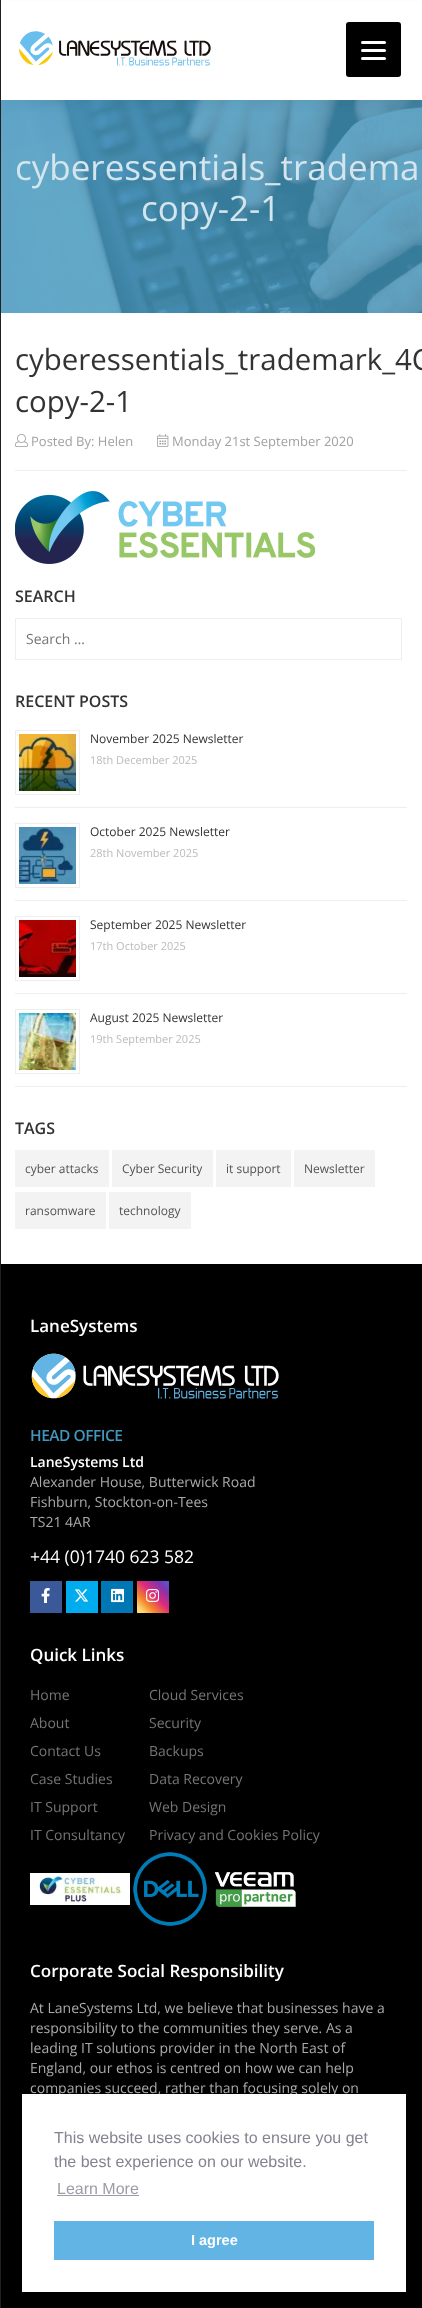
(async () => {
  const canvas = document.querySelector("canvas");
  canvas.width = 422;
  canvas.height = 2308;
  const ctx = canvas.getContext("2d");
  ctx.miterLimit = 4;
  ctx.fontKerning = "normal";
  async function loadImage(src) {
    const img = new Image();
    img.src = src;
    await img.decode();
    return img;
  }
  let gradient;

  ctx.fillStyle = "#ffffff";
  ctx.fillRect(0, 0, 422, 2308);
  ctx.drawImage(await loadImage("img/2.png"), 1, 100, 421, 213);
  ctx.fillStyle = "rgba(0, 0, 0, 0.04)";
  ctx.filter = "blur(5px)";
  ctx.beginPath();
  ctx.rect(0, 5, 422, 100);
  ctx.fill();
  ctx.filter = "none";
  ctx.fillStyle = "#212121";
  ctx.fillRect(0, 0, 1, 2308);
  ctx.fillStyle = "#ffffff";
  ctx.fillRect(1, 2, 421, 98);
  ctx.fillStyle = "#000000";
  ctx.beginPath();
  ctx.roundRect(346, 22, 55, 55, 3);
  ctx.fill();
  ctx.fillStyle = "#ffffff";
  ctx.beginPath();
  ctx.roundRect(361, 57, 25, 3, 1.5);
  ctx.fill();
  ctx.beginPath();
  ctx.roundRect(361, 41, 25, 3, 1.5);
  ctx.fill();
  ctx.beginPath();
  ctx.roundRect(361, 49, 25, 3, 1.5);
  ctx.fill();
  ctx.drawImage(await loadImage("img/1.png"), 19, 31, 192, 35);
  ctx.drawImage(await loadImage("img/3.png"), 15, 434, 13, 13);
  ctx.drawImage(await loadImage("img/4.png"), 157, 434, 12, 13);
  ctx.fillStyle = "#eeeeee";
  ctx.fillRect(15, 470, 392, 1);
  ctx.drawImage(await loadImage("img/5.png"), 15, 491, 300, 73);
  ctx.strokeStyle = "#eeeeee";
  ctx.strokeRect(15.5, 618.5, 386, 41);
  ctx.fillRect(15, 807, 392, 1);
  ctx.strokeRect(15.5, 730.5, 64, 64);
  ctx.drawImage(await loadImage("img/6.png"), 19, 734, 57, 57);
  ctx.fillRect(15, 900, 392, 1);
  ctx.strokeRect(15.5, 823.5, 64, 64);
  ctx.drawImage(await loadImage("img/7.png"), 19, 827, 57, 57);
  ctx.fillRect(15, 993, 392, 1);
  ctx.strokeRect(15.5, 916.5, 64, 64);
  ctx.drawImage(await loadImage("img/8.png"), 19, 920, 57, 57);
  ctx.fillRect(15, 1086, 392, 1);
  ctx.strokeRect(15.5, 1009.5, 64, 64);
  ctx.drawImage(await loadImage("img/9.png"), 19, 1013, 57, 57);
  for (const [x, y, w, h, color] of [
    [15, 1150, 94, 37, "#f3f3f3"],
    [112, 1150, 101, 37, "#f3f3f3"],
    [216, 1150, 75, 37, "#f3f3f3"],
    [294, 1150, 81, 37, "#f3f3f3"],
    [15, 1192, 91, 37, "#f3f3f3"],
    [109, 1192, 82, 37, "#f3f3f3"],
    [1, 1264, 421, 1044, "#000000"],
  ]) {
    ctx.fillStyle = color;
    ctx.fillRect(x, y, w, h);
  }
  ctx.drawImage(await loadImage("img/10.png"), 31, 1353, 248, 46);
  ctx.fillStyle = "#3b5998";
  ctx.fillRect(30, 1581, 32, 32);
  ctx.drawImage(await loadImage("img/11.png"), 41, 1588, 9, 15);
  ctx.fillStyle = "#00aced";
  ctx.fillRect(66, 1581, 32, 32);
  ctx.drawImage(await loadImage("img/12.png"), 74, 1589, 15, 13);
  ctx.fillStyle = "#0077b5";
  ctx.fillRect(101, 1581, 32, 32);
  ctx.drawImage(await loadImage("img/13.png"), 111, 1588, 13, 15);
  gradient = ctx.createLinearGradient(169, 1581, 137, 1613);
  gradient.addColorStop(0, "#515bd4");
  gradient.addColorStop(0.2, "#8134af");
  gradient.addColorStop(0.45, "#dd2a7b");
  gradient.addColorStop(0.7, "#f58529");
  gradient.addColorStop(0.9, "#feda77");
  ctx.fillStyle = gradient;
  ctx.fillRect(137, 1581, 32, 32);
  ctx.drawImage(await loadImage("img/14.png"), 146, 1589, 13, 13);
  ctx.drawImage(await loadImage("img/15.png"), 30, 1873, 100, 32);
  ctx.drawImage(await loadImage("img/16.png"), 133, 1852, 74, 74);
  ctx.drawImage(await loadImage("img/17.png"), 214, 1872, 82, 35);
  ctx.font = "35px Open Sans";
  ctx.fillStyle = "#d4e5ed";
  ctx.fillText("cyberessentials_tradema", 15, 180);
  ctx.fillText("copy-2-1", 141, 221);
  ctx.font = "29.4px Open Sans";
  ctx.fillStyle = "#333333";
  ctx.fillText("cyberessentials_trademark_4C", 15, 370);
  ctx.fillText("copy-2-1", 15, 412);
  ctx.font = "13px Open Sans";
  ctx.fillStyle = "#a1a1a1";
  ctx.fillText("Posted By: Helen", 31, 446);
  ctx.fillText("Monday 21st September 2020", 172, 446);
  ctx.font = "600 16px Open Sans";
  ctx.fillStyle = "#333333";
  ctx.fillText("SEARCH", 15, 602);
  ctx.font = "14px Open Sans";
  ctx.fillStyle = "#757575";
  ctx.fillText("Search …", 26, 644);
  ctx.font = "600 16px Open Sans";
  ctx.fillStyle = "#333333";
  ctx.fillText("RECENT POSTS", 15, 707);
  ctx.font = "12px Open Sans";
  ctx.fillText("November 2025 Newsletter", 90, 743);
  ctx.font = "11px Open Sans";
  ctx.fillStyle = "#bbbbbb";
  ctx.fillText("18th December 2025", 90, 764);
  ctx.font = "12px Open Sans";
  ctx.fillStyle = "#333333";
  ctx.fillText("October 2025 Newsletter", 90, 836);
  ctx.font = "11px Open Sans";
  ctx.fillStyle = "#bbbbbb";
  ctx.fillText("28th November 2025", 90, 857);
  ctx.font = "12px Open Sans";
  ctx.fillStyle = "#333333";
  ctx.fillText("September 2025 Newsletter", 90, 929);
  ctx.font = "11px Open Sans";
  ctx.fillStyle = "#bbbbbb";
  ctx.fillText("17th October 2025", 90, 950);
  ctx.font = "12px Open Sans";
  ctx.fillStyle = "#333333";
  ctx.fillText("August 2025 Newsletter", 90, 1022);
  ctx.font = "11px Open Sans";
  ctx.fillStyle = "#bbbbbb";
  ctx.fillText("19th September 2025", 90, 1043);
  ctx.font = "600 16px Open Sans";
  ctx.fillStyle = "#333333";
  ctx.fillText("TAGS", 15, 1134);
  ctx.font = "12px Open Sans";
  ctx.fillStyle = "#535353";
  for (const [text, x, y] of [
    ["cyber attacks", 25, 1173],
    ["Cyber Security", 122, 1173],
    ["it support", 226, 1173],
    ["Newsletter", 304, 1173],
    ["ransomware", 25, 1215],
    ["technology", 119, 1215],
  ]) {
    ctx.fillText(text, x, y);
  }
  ctx.font = "600 17px Open Sans";
  ctx.fillStyle = "#ffffff";
  ctx.fillText("LaneSystems", 30, 1332);
  ctx.letterSpacing = "-0.5px";
  ctx.font = "600 15.5px Open Sans";
  ctx.fillStyle = "#4296bb";
  ctx.fillText("HEAD OFFICE", 30, 1441);
  ctx.letterSpacing = "0px";
  ctx.font = "600 14px Open Sans";
  ctx.fillStyle = "#ffffff";
  ctx.fillText("LaneSystems Ltd", 30, 1467);
  ctx.font = "14px Open Sans";
  ctx.fillStyle = "#aaaaaa";
  for (const [text, x, y] of [
    ["Alexander House, Butterwick Road", 30, 1487],
    ["Fishburn, Stockton-on-Tees", 30, 1507],
    ["TS21 4AR", 30, 1527],
  ]) {
    ctx.fillText(text, x, y);
  }
  ctx.font = "17.5px Open Sans";
  ctx.fillStyle = "#ffffff";
  ctx.fillText("+44 (0)1740 623 582", 30, 1563);
  ctx.font = "600 17px Open Sans";
  ctx.fillText("Quick Links", 30, 1661);
  ctx.font = "14px Open Sans";
  ctx.fillStyle = "#757575";
  for (const [text, x, y] of [
    ["Home", 30, 1700],
    ["About", 30, 1728],
    ["Contact Us", 30, 1756],
    ["Case Studies", 30, 1784],
    ["IT Support", 30, 1812],
    ["IT Consultancy", 30, 1840],
    ["Cloud Services", 149, 1700],
    ["Security", 149, 1728],
    ["Backups", 149, 1756],
    ["Data Recovery", 149, 1784],
    ["Web Design", 149, 1812],
    ["Privacy and Cookies Policy", 149, 1840],
  ]) {
    ctx.fillText(text, x, y);
  }
  ctx.font = "600 17px Open Sans";
  ctx.fillStyle = "#ffffff";
  ctx.fillText("Corporate Social Responsibility", 30, 1977);
  ctx.font = "14px Open Sans";
  ctx.fillStyle = "#aaaaaa";
  for (const [text, x, y] of [
    ["At LaneSystems Ltd, we believe that businesses have a", 30, 2013],
    ["responsibility to the communities they serve. As a", 30, 2033],
    ["leading IT solutions provider in the North East of", 30, 2053],
    ["England, our ethos is centred on how we can help", 30, 2073],
    ["companies succeed, rather than focusing solely on", 30, 2093],
  ]) {
    ctx.fillText(text, x, y);
  }
  ctx.fillStyle = "#ffffff";
  ctx.fillRect(22, 2094, 384, 198);
  ctx.font = "16px Liberation Sans";
  ctx.fillStyle = "#838391";
  ctx.fillText("This website uses cookies to ensure you get", 54, 2143);
  ctx.fillText("the best experience on our website.", 54, 2167);
  ctx.fillStyle = "#9c9ca7";
  ctx.fillText("Learn More", 57, 2194);
  ctx.fillRect(57, 2195, 82, 1);
  ctx.fillStyle = "#61b4e4";
  ctx.fillRect(54, 2221, 320, 39);
  ctx.font = "bold 14.5px Liberation Sans";
  ctx.fillStyle = "#ffffff";
  ctx.fillText("I agree", 191, 2245);
})();
